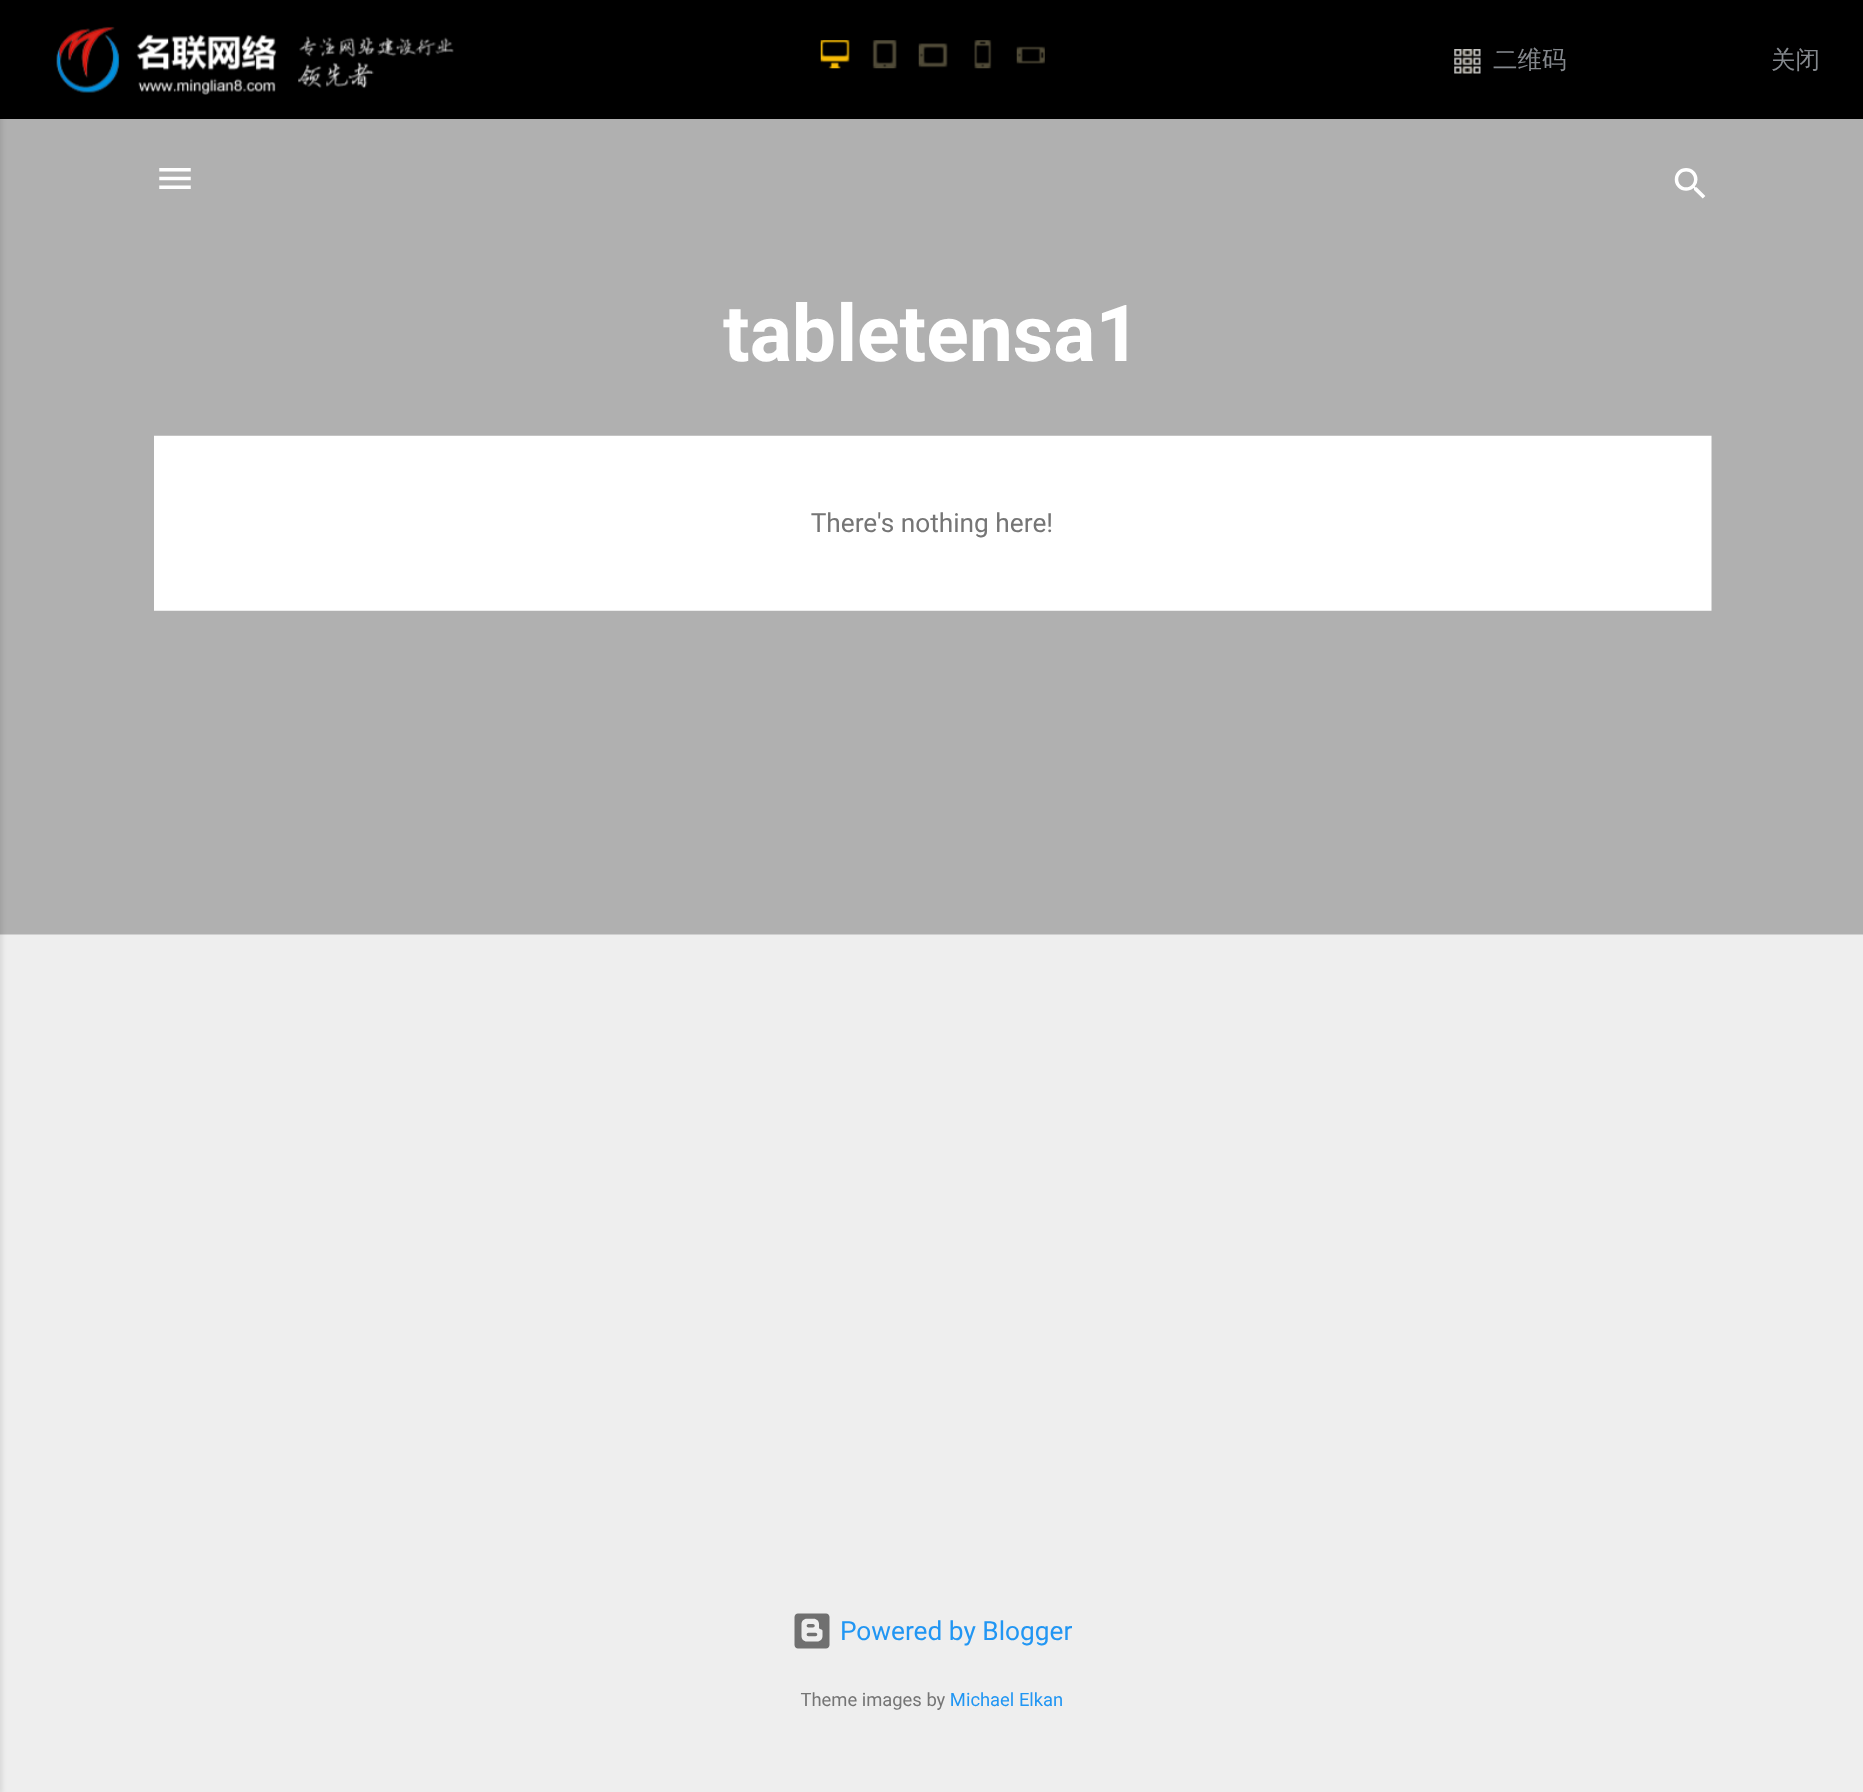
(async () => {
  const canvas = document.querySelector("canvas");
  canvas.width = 1863;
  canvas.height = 1792;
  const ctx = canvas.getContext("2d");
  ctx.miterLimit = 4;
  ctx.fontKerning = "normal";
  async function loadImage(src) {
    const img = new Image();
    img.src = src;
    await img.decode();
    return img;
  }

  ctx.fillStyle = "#ffffff";
  ctx.fillRect(0, 0, 1863, 1792);
  ctx.fillStyle = "#000000";
  ctx.fillRect(0, 0, 1863, 119);
  ctx.drawImage(await loadImage("img/1.png"), 56, 26, 398, 69);
  ctx.drawImage(await loadImage("img/2.png"), 820, 40, 30, 29);
  ctx.drawImage(await loadImage("img/3.png"), 872, 40, 25, 29);
  ctx.drawImage(await loadImage("img/4.png"), 918, 43, 30, 25);
  ctx.drawImage(await loadImage("img/5.png"), 974, 40, 18, 29);
  ctx.drawImage(await loadImage("img/6.png"), 1016, 46, 29, 18);
  ctx.drawImage(await loadImage("img/7.png"), 1454, 49, 27, 25);
  ctx.drawImage(await loadImage("img/8.png"), 0, 119, 1863, 1673);
  ctx.font = "500 24.5px WenQuanYi Zen Hei";
  ctx.fillStyle = "#84888d";
  ctx.fillText("二维码", 1493, 68);
  ctx.fillText("关闭", 1771, 68);
})();
